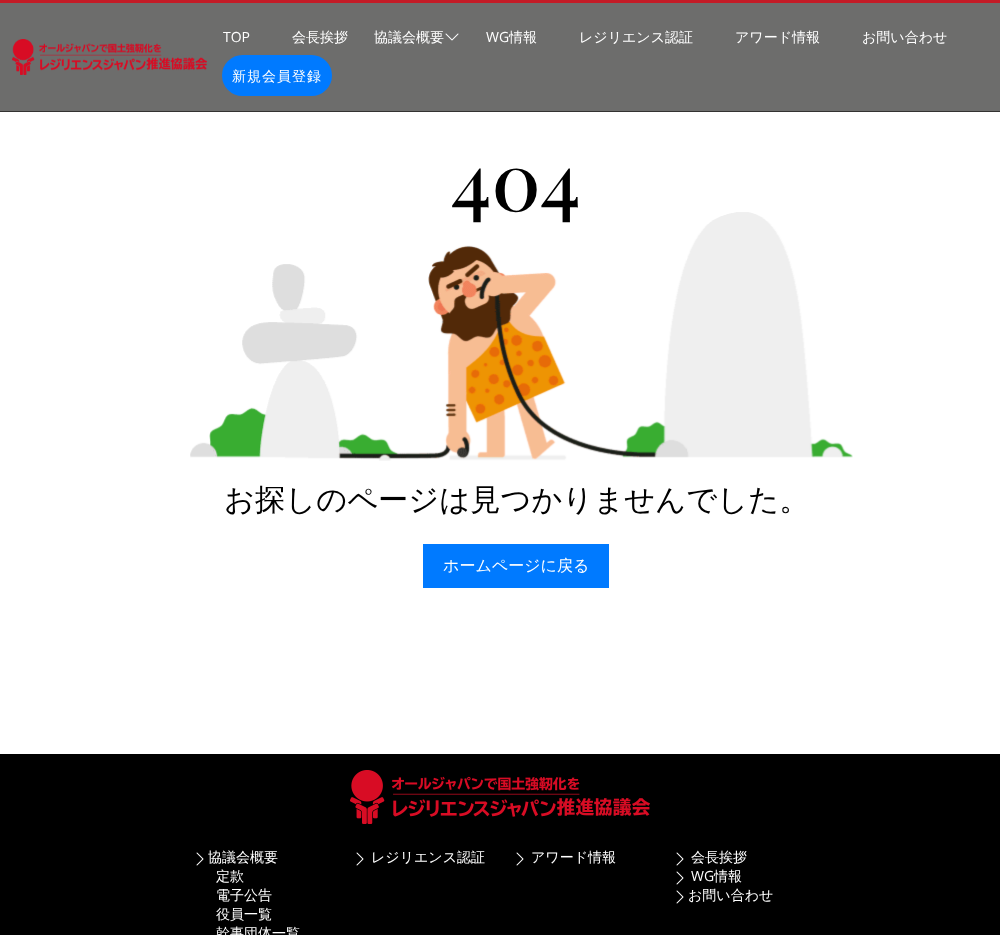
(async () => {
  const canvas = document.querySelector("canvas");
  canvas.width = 1000;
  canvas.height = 935;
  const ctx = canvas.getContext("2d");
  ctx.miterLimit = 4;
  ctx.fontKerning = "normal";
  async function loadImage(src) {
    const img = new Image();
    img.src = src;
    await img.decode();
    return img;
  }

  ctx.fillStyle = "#ffffff";
  ctx.fillRect(0, 0, 1000, 935);
  for (const [x, y, w, h, color] of [
    [0, 3, 1000, 108, "#6d6d6c"],
    [0, 0, 1000, 3, "#c31b26"],
    [0, 111, 1000, 1, "#333231"],
  ]) {
    ctx.fillStyle = color;
    ctx.fillRect(x, y, w, h);
  }
  ctx.drawImage(await loadImage("img/1.png"), 12, 39, 195, 36);
  ctx.drawImage(await loadImage("img/2.png"), 445, 33, 14, 8);
  ctx.fillStyle = "#007aff";
  ctx.beginPath();
  ctx.roundRect(223, 56, 108, 39, 19.5);
  ctx.fill();
  ctx.strokeStyle = "#007aff";
  ctx.lineWidth = 2;
  ctx.stroke();
  ctx.drawImage(await loadImage("img/3.png"), 190, 212, 663, 249);
  ctx.fillRect(423, 544, 186, 44);
  ctx.fillStyle = "#000000";
  ctx.fillRect(0, 754, 1000, 181);
  ctx.drawImage(await loadImage("img/4.png"), 350, 770, 300, 54);
  ctx.drawImage(await loadImage("img/5.png"), 196, 852, 8, 14);
  ctx.drawImage(await loadImage("img/5.png"), 356, 852, 8, 14);
  ctx.drawImage(await loadImage("img/5.png"), 516, 852, 8, 14);
  ctx.drawImage(await loadImage("img/5.png"), 676, 852, 8, 14);
  ctx.drawImage(await loadImage("img/5.png"), 676, 871, 8, 14);
  ctx.drawImage(await loadImage("img/5.png"), 676, 890, 8, 14);
  ctx.font = "14px Open Sans";
  ctx.fillStyle = "#ffffff";
  ctx.fillText("TOP", 223, 42);
  ctx.font = "500 14px WenQuanYi Zen Hei";
  ctx.fillText("会長挨拶", 292, 42);
  ctx.fillText("協議会概要", 374, 42);
  ctx.font = "14px Open Sans";
  ctx.fillText("WG", 486, 42);
  ctx.font = "500 14px WenQuanYi Zen Hei";
  for (const [text, x, y] of [
    ["情報", 509, 42],
    ["レジリエンス認証", 579, 42],
    ["アワード情報", 735, 42],
    ["お問い合わせ", 862, 42],
  ]) {
    ctx.fillText(text, x, y);
  }
  ctx.letterSpacing = "1px";
  ctx.fillText("新規会員登録", 232, 81);
  ctx.letterSpacing = "0px";
  ctx.font = "500 80px Playfair Display";
  ctx.fillStyle = "#000000";
  ctx.fillText("404", 451, 211);
  ctx.font = "500 30.25px WenQuanYi Zen Hei";
  ctx.fillText("お探しのページは見つかりませんでした。", 224, 510);
  ctx.font = "500 16px WenQuanYi Zen Hei";
  ctx.fillStyle = "#ffffff";
  ctx.fillText("ホームページに戻る", 443, 571);
  ctx.font = "500 14px WenQuanYi Zen Hei";
  for (const [text, x, y] of [
    ["協議会概要", 208, 862],
    ["定款", 216, 881],
    ["電子公告", 216, 900],
    ["役員一覧", 216, 919],
    ["幹事団体一覧", 216, 938],
    ["レジリエンス認証", 371, 862],
    ["アワード情報", 531, 862],
    ["会長挨拶", 691, 862],
  ]) {
    ctx.fillText(text, x, y);
  }
  ctx.font = "14px Open Sans";
  ctx.fillText("WG", 691, 881);
  ctx.font = "500 14px WenQuanYi Zen Hei";
  ctx.fillText("情報", 714, 881);
  ctx.fillText("お問い合わせ", 688, 900);
})();
